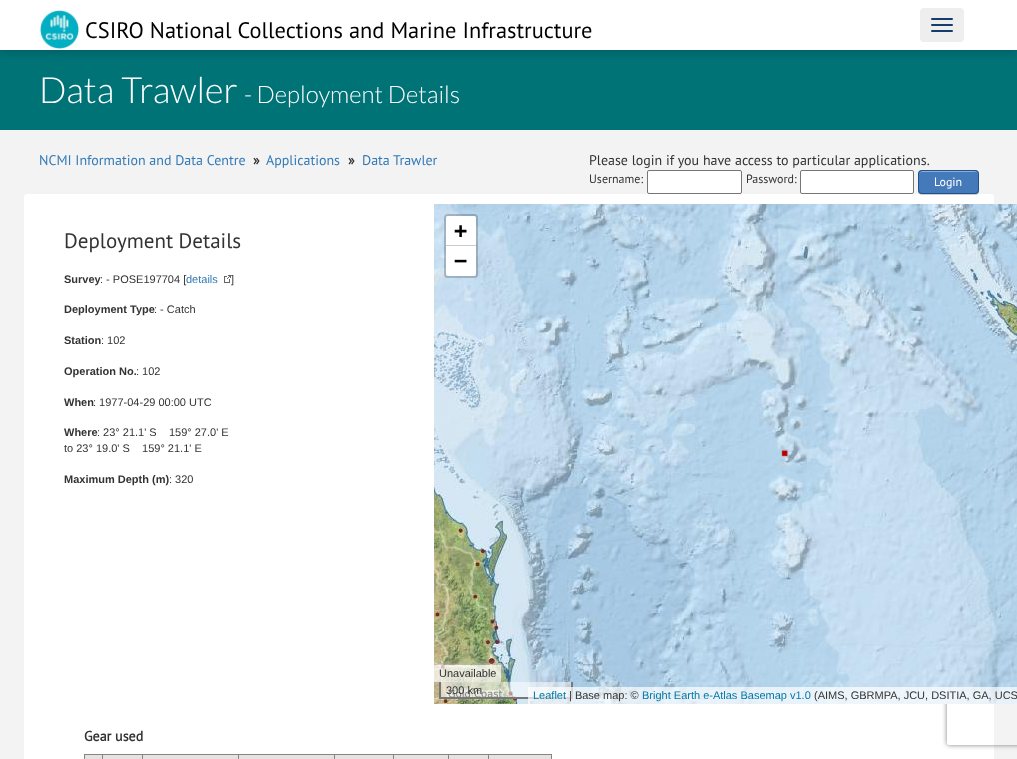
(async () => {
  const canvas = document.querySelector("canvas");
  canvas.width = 1017;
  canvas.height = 759;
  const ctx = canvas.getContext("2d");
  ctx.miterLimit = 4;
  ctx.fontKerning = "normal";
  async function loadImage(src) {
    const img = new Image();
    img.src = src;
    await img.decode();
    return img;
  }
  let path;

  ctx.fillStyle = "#f3f3f3";
  ctx.fillRect(0, 0, 1017, 759);
  ctx.fillStyle = "#007377";
  ctx.fillRect(0, 50, 1017, 80);
  ctx.fillStyle = "rgba(0, 0, 0, 0.2)";
  ctx.filter = "blur(5px)";
  ctx.beginPath();
  ctx.rect(0, 2, 1017, 50);
  ctx.fill();
  ctx.filter = "none";
  ctx.fillStyle = "#ffffff";
  ctx.fillRect(0, 0, 1017, 50);
  ctx.drawImage(await loadImage("img/1.png"), 40, 10, 39, 39);
  ctx.fillStyle = "#eeeeee";
  ctx.beginPath();
  ctx.roundRect(920, 8, 44, 34, 4);
  ctx.fill();
  ctx.fillStyle = "#153d6b";
  ctx.beginPath();
  ctx.roundRect(931, 18, 22, 2, 1);
  ctx.fill();
  ctx.beginPath();
  ctx.roundRect(931, 24, 22, 2, 1);
  ctx.fill();
  ctx.beginPath();
  ctx.roundRect(931, 30, 22, 2, 1);
  ctx.fill();
  ctx.fillStyle = "#ffffff";
  ctx.beginPath();
  ctx.roundRect(647.5, 170.5, 94, 23, 1.5);
  ctx.fill();
  ctx.strokeStyle = "#767676";
  ctx.stroke();
  ctx.beginPath();
  ctx.roundRect(800.5, 170.5, 113, 23, 1.5);
  ctx.fill();
  ctx.stroke();
  ctx.beginPath();
  ctx.roundRect(24, 194, 970, 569, 4);
  ctx.fill();
  ctx.fillStyle = "rgba(0, 0, 0, 0.2)";
  ctx.filter = "blur(0.5px)";
  ctx.beginPath();
  ctx.roundRect(918, 171, 61, 24, 4);
  ctx.fill();
  ctx.filter = "none";
  ctx.fillStyle = "#4479ba";
  ctx.beginPath();
  ctx.roundRect(918, 170, 61, 24, 4);
  ctx.fill();
  ctx.fillStyle = "#8fafd6";
  path = new Path2D("M922 172H975C977 172 978 173 978 175C978 169 971 171 966 171H931C926 171 919 169 919 175C919 173 920 172 922 172Z");
  ctx.fill(path);
  ctx.beginPath();
  ctx.roundRect(918.5, 170.5, 60, 23, 3.5);
  ctx.strokeStyle = "#20538d";
  ctx.stroke();
  ctx.save();
  path = new Path2D("M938 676H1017V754H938ZM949 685H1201C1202 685 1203 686 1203 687V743C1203 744 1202 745 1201 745H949C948 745 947 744 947 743V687C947 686 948 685 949 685Z");
  ctx.clip(path, "evenodd");
  ctx.fillStyle = "#808080";
  ctx.filter = "blur(2.5px)";
  ctx.beginPath();
  ctx.roundRect(947, 685, 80, 60, 2);
  ctx.fill();
  ctx.filter = "none";
  ctx.restore();
  ctx.drawImage(await loadImage("img/2.png"), 224, 275, 7, 8);
  ctx.drawImage(await loadImage("img/3.png"), 434, 204, 5, 181);
  ctx.drawImage(await loadImage("img/4.png"), 439, 204, 256, 181);
  ctx.drawImage(await loadImage("img/5.png"), 695, 204, 256, 181);
  ctx.drawImage(await loadImage("img/6.png"), 951, 204, 66, 181);
  ctx.drawImage(await loadImage("img/7.png"), 434, 385, 5, 256);
  ctx.drawImage(await loadImage("img/8.png"), 439, 385, 256, 256);
  ctx.drawImage(await loadImage("img/9.png"), 695, 385, 256, 256);
  ctx.drawImage(await loadImage("img/10.png"), 951, 385, 66, 256);
  ctx.drawImage(await loadImage("img/11.png"), 434, 641, 5, 63);
  ctx.drawImage(await loadImage("img/12.png"), 439, 641, 256, 63);
  ctx.drawImage(await loadImage("img/13.png"), 695, 641, 256, 63);
  ctx.drawImage(await loadImage("img/14.png"), 951, 641, 66, 63);
  ctx.drawImage(await loadImage("img/15.png"), 781, 450, 7, 7);
  ctx.beginPath();
  ctx.roundRect(445, 215, 32, 62, 3);
  ctx.strokeStyle = "rgba(0, 0, 0, 0.2)";
  ctx.lineWidth = 2;
  ctx.stroke();
  ctx.fillStyle = "#ffffff";
  ctx.beginPath();
  ctx.roundRect(446, 216, 30, 30, [2, 2, 0, 0]);
  ctx.fill();
  ctx.fillStyle = "#cccccc";
  ctx.fillRect(446, 245, 30, 1);
  ctx.fillStyle = "#ffffff";
  ctx.beginPath();
  ctx.roundRect(446, 246, 30, 30, [0, 0, 2, 2]);
  ctx.fill();
  ctx.save();
  ctx.beginPath();
  ctx.rect(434, 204, 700, 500);
  ctx.clip();
  path = new Path2D("M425 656H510V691H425ZM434 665H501V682H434Z");
  ctx.clip(path, "evenodd");
  ctx.fillStyle = "#bbbbbb";
  ctx.filter = "blur(2.5px)";
  ctx.beginPath();
  ctx.rect(434, 665, 67, 17);
  ctx.fill();
  ctx.filter = "none";
  ctx.restore();
  for (const [x, y, w, h, color] of [
    [434, 665, 67, 17, "rgba(255, 255, 255, 0.7)"],
    [441, 682, 130, 15, "rgba(255, 255, 255, 0.5)"],
    [571, 682, 2, 17, "#777777"],
    [439, 697, 134, 2, "#777777"],
    [439, 682, 2, 17, "#777777"],
    [528, 687, 489, 17, "rgba(255, 255, 255, 0.7)"],
    [84, 755, 467, 4, "#e8e1e1"],
    [488, 754, 64, 1, "#858585"],
    [488, 754, 1, 5, "#858585"],
    [448, 754, 41, 1, "#858585"],
    [448, 754, 1, 5, "#858585"],
    [393, 754, 56, 1, "#858585"],
    [393, 754, 1, 5, "#858585"],
    [334, 754, 60, 1, "#858585"],
    [334, 754, 1, 5, "#858585"],
    [238, 754, 97, 1, "#858585"],
    [238, 754, 1, 5, "#858585"],
    [142, 754, 97, 1, "#858585"],
    [142, 754, 1, 5, "#858585"],
    [102, 754, 41, 1, "#858585"],
    [102, 754, 1, 5, "#858585"],
    [84, 754, 19, 1, "#858585"],
    [84, 754, 1, 5, "#858585"],
    [551, 754, 1, 5, "#858585"],
  ]) {
    ctx.fillStyle = color;
    ctx.fillRect(x, y, w, h);
  }
  ctx.font = "22.4px PT Sans";
  ctx.fillStyle = "#000000";
  ctx.fillText("CSIRO National Collections and Marine Infrastructure", 85, 38);
  ctx.font = "300 36px Lato";
  ctx.fillStyle = "#ffffff";
  ctx.fillText("Data Trawler", 39, 103);
  ctx.font = "300 24px Lato";
  ctx.fillText("- Deployment Details", 244, 103);
  ctx.font = "14px PT Sans";
  ctx.fillStyle = "#337ab7";
  ctx.fillText("NCMI Information and Data Centre", 39, 165);
  ctx.font = "bold 14px PT Sans";
  ctx.fillStyle = "#333333";
  ctx.fillText("»", 253, 165);
  ctx.font = "14px PT Sans";
  ctx.fillStyle = "#337ab7";
  ctx.fillText("Applications", 266, 165);
  ctx.font = "bold 14px PT Sans";
  ctx.fillStyle = "#333333";
  ctx.fillText("»", 348, 165);
  ctx.font = "14px PT Sans";
  ctx.fillStyle = "#337ab7";
  ctx.fillText("Data Trawler", 362, 165);
  ctx.fillStyle = "#333333";
  ctx.fillText("Please login if you have access to particular applications.", 589, 165);
  ctx.font = "12px PT Sans";
  ctx.fillText("Username:", 589, 183);
  ctx.fillText("Password:", 746, 183);
  ctx.fillStyle = "#ffffff";
  ctx.fillText("Login", 934, 186);
  ctx.font = "21px PT Sans";
  ctx.fillStyle = "#333333";
  ctx.fillText("Deployment Details", 64, 248);
  ctx.font = "bold 11px Liberation Sans";
  ctx.fillText("Survey", 64, 283);
  ctx.font = "11px Liberation Sans";
  ctx.fillText(": - POSE197704 [", 100, 283);
  ctx.fillStyle = "#337ab7";
  ctx.fillText("details", 186, 283);
  ctx.fillStyle = "#333333";
  ctx.fillText("]", 231, 283);
  ctx.font = "bold 11px Liberation Sans";
  ctx.fillText("Deployment Type", 64, 313);
  ctx.font = "11px Liberation Sans";
  ctx.fillText(": - Catch", 154, 313);
  ctx.font = "bold 11px Liberation Sans";
  ctx.fillText("Station", 64, 344);
  ctx.font = "11px Liberation Sans";
  ctx.fillText(": 102", 101, 344);
  ctx.font = "bold 11px Liberation Sans";
  ctx.fillText("Operation No.", 64, 375);
  ctx.font = "11px Liberation Sans";
  ctx.fillText(": 102", 136, 375);
  ctx.font = "bold 11px Liberation Sans";
  ctx.fillText("When", 64, 406);
  ctx.font = "11px Liberation Sans";
  ctx.fillText(": 1977-04-29 00:00 UTC", 93, 406);
  ctx.font = "bold 11px Liberation Sans";
  ctx.fillText("Where", 64, 436);
  ctx.font = "11px Liberation Sans";
  ctx.fillText(": 23° 21.1' S    159° 27.0' E", 97, 436);
  ctx.fillText("to 23° 19.0' S    159° 21.1' E", 64, 452);
  ctx.font = "bold 11px Liberation Sans";
  ctx.fillText("Maximum Depth (m)", 64, 483);
  ctx.font = "11px Liberation Sans";
  ctx.fillText(": 320", 169, 483);
  ctx.font = "bold 22px DejaVu Sans Mono";
  ctx.fillStyle = "#000000";
  ctx.fillText("+", 454, 238);
  ctx.fillText("−", 454, 268);
  ctx.font = "11px Liberation Sans";
  ctx.fillStyle = "#333333";
  ctx.fillText("Unavailable", 439, 677);
  ctx.fillText("300 km", 446, 694);
  ctx.fillStyle = "#0078a8";
  ctx.fillText("Leaflet", 533, 699);
  ctx.fillStyle = "#333333";
  ctx.fillText("| Base map: ©", 569, 699);
  ctx.fillStyle = "#0078a8";
  ctx.fillText("Bright Earth e-Atlas Basemap v1.0", 642, 699);
  ctx.fillStyle = "#333333";
  ctx.fillText("(AIMS, GBRMPA, JCU, DSITIA, GA, UCS", 814, 699);
  ctx.font = "bold 14px PT Sans";
  ctx.fillText("Gear used", 84, 741);
})();
